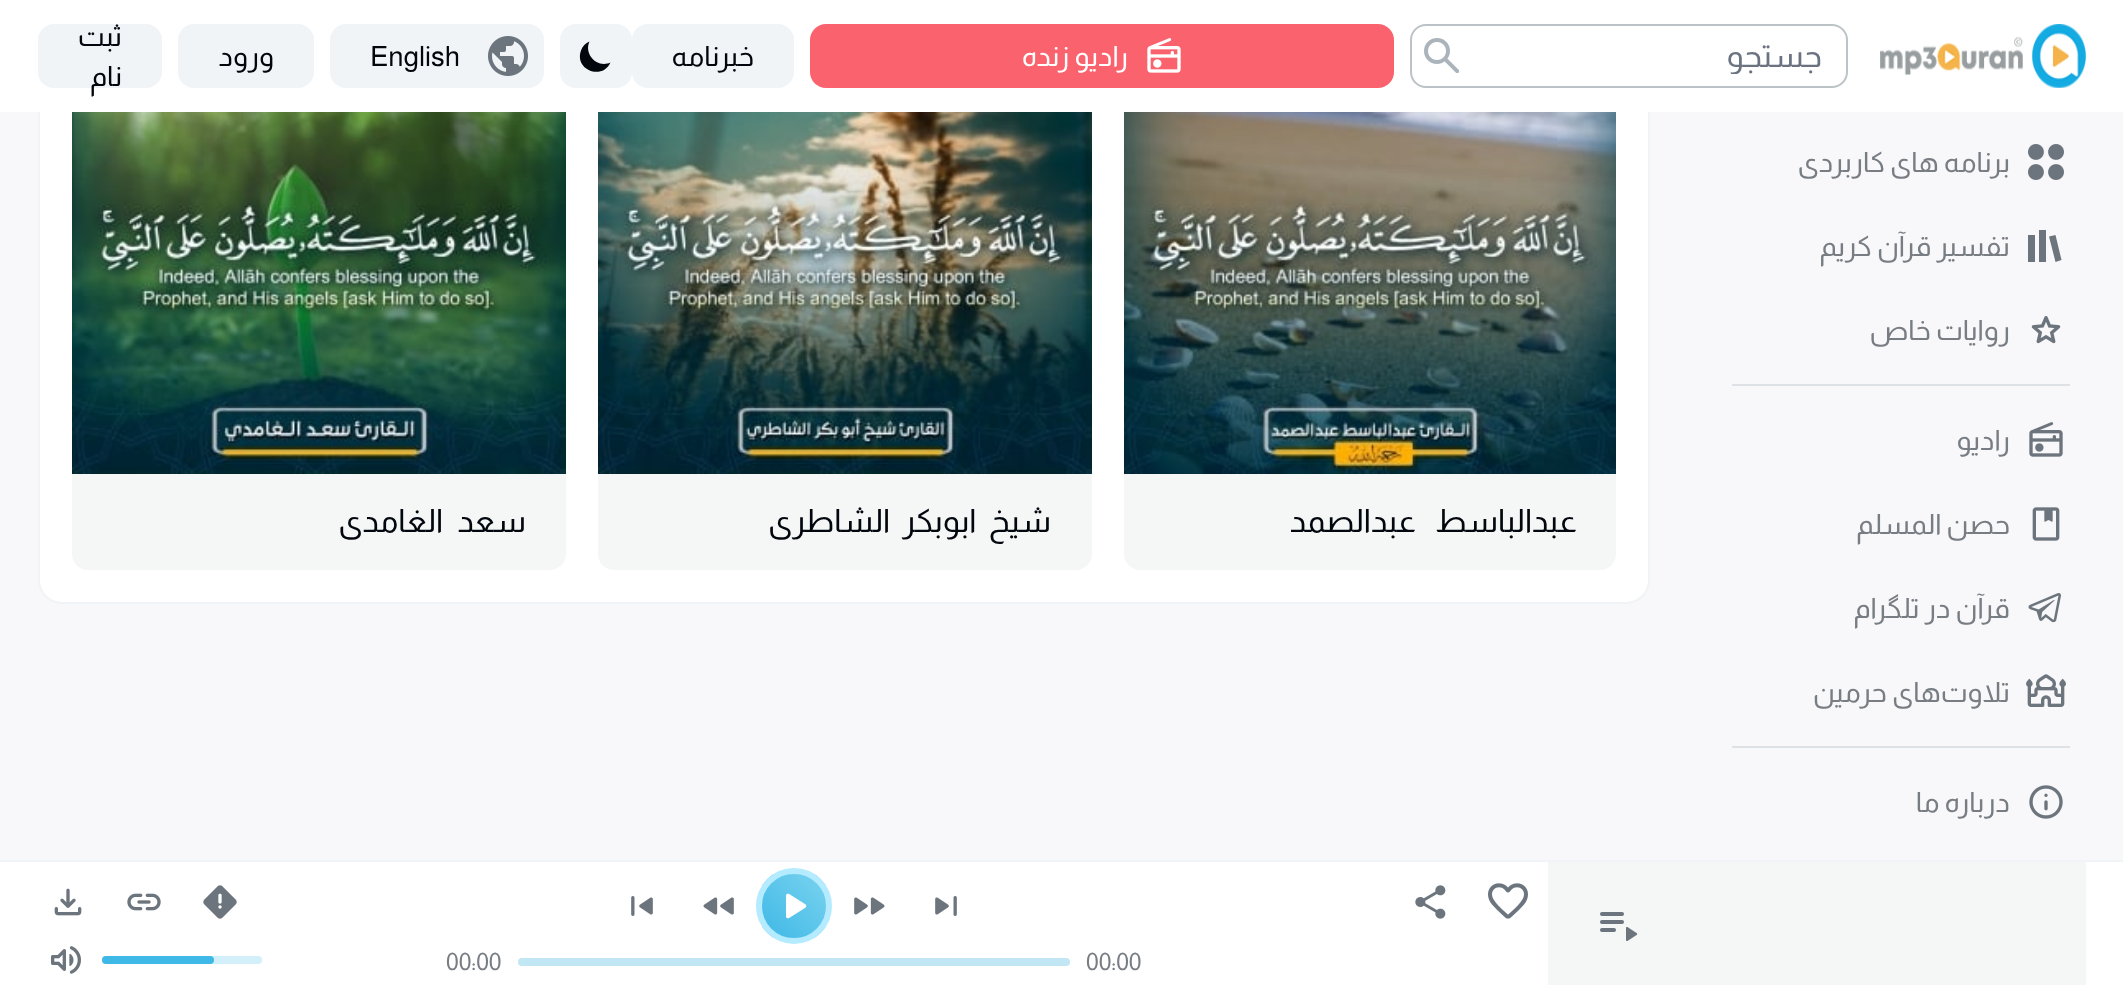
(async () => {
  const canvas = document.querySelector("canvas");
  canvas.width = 2123;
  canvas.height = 985;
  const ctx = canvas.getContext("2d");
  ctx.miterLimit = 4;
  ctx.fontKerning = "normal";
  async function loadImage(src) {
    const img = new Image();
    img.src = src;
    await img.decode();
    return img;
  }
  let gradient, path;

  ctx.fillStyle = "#f8f7f9";
  ctx.fillRect(0, 0, 2123, 985);
  ctx.fillStyle = "#ffffff";
  ctx.beginPath();
  ctx.roundRect(39, -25, 1610, 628, 23);
  ctx.fill();
  ctx.strokeStyle = "#f0f4f6";
  ctx.lineWidth = 2;
  ctx.stroke();
  ctx.fillStyle = "#f5f7f7";
  ctx.beginPath();
  ctx.roundRect(1124, -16, 492, 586, 16);
  ctx.fill();
  ctx.beginPath();
  ctx.roundRect(598, -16, 494, 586, 16);
  ctx.fill();
  ctx.beginPath();
  ctx.roundRect(72, -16, 494, 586, 16);
  ctx.fill();
  ctx.fillStyle = "#ffffff";
  ctx.fillRect(0, 0, 2123, 112);
  ctx.drawImage(await loadImage("img/1.png"), 1880, 24, 206, 64);
  ctx.beginPath();
  ctx.roundRect(1411, 25, 436, 62, 15);
  ctx.strokeStyle = "#bcc3c6";
  ctx.stroke();
  ctx.drawImage(await loadImage("img/2.png"), 1424, 38, 36, 36);
  ctx.fillStyle = "#fa626d";
  ctx.beginPath();
  ctx.roundRect(810, 24, 584, 64, 16);
  ctx.fill();
  ctx.drawImage(await loadImage("img/3.png"), 1147, 38, 34, 35);
  ctx.fillStyle = "#f0f4f6";
  ctx.beginPath();
  ctx.roundRect(632, 24, 162, 64, 16);
  ctx.fill();
  ctx.beginPath();
  ctx.roundRect(560, 24, 72, 64, 16);
  ctx.fill();
  ctx.fillStyle = "#02070e";
  path = new Path2D("M610.5 62.5C597.5 68.5 583.5 54.5 589.5 41.5C585.5 43 582.5 46.5 581 50.5C574 69.5 602 81 610.5 62.5Z");
  ctx.fill(path);
  ctx.fillStyle = "#f0f4f6";
  ctx.beginPath();
  ctx.roundRect(330, 24, 214, 64, 16);
  ctx.fill();
  ctx.drawImage(await loadImage("img/4.png"), 488, 36, 40, 40);
  ctx.beginPath();
  ctx.roundRect(178, 24, 136, 64, 16);
  ctx.fill();
  ctx.beginPath();
  ctx.roundRect(38, 24, 124, 64, 16);
  ctx.fill();
  ctx.drawImage(await loadImage("img/5.png"), 2028, 144, 36, 36);
  ctx.fillStyle = "#6c757d";
  path = new Path2D("M2039 230H2046V262H2039ZM2028 235H2035V262H2028ZM2055.5 235L2049 236.5L2055.5 262L2061.5 260Z");
  ctx.fill(path);
  ctx.drawImage(await loadImage("img/6.png"), 2031, 316, 30, 28);
  ctx.fillStyle = "#dee2e6";
  ctx.fillRect(1732, 384, 338, 2);
  ctx.drawImage(await loadImage("img/7.png"), 2029, 422, 34, 35);
  ctx.drawImage(await loadImage("img/8.png"), 2032, 507, 28, 34);
  ctx.drawImage(await loadImage("img/9.png"), 2028, 593, 33, 30);
  ctx.drawImage(await loadImage("img/10.png"), 2026, 674, 40, 33);
  ctx.fillRect(1732, 746, 338, 2);
  ctx.drawImage(await loadImage("img/11.png"), 2029, 785, 34, 34);
  ctx.drawImage(await loadImage("img/12.png"), 1124, 112, 492, 362);
  ctx.drawImage(await loadImage("img/13.png"), 598, 112, 494, 362);
  ctx.drawImage(await loadImage("img/14.png"), 72, 112, 494, 362);
  for (const [x, y, w, h, color] of [
    [0, 862, 2123, 123, "#ffffff"],
    [0, 860, 2123, 2, "#f0f4f6"],
    [1548, 862, 538, 123, "#f5f7f7"],
  ]) {
    ctx.fillStyle = color;
    ctx.fillRect(x, y, w, h);
  }
  ctx.drawImage(await loadImage("img/15.png"), 1600, 912, 38, 29);
  ctx.drawImage(await loadImage("img/16.png"), 1488, 883, 40, 36);
  ctx.drawImage(await loadImage("img/17.png"), 1415, 885, 31, 34);
  ctx.drawImage(await loadImage("img/18.png"), 203, 885, 34, 34);
  ctx.drawImage(await loadImage("img/19.png"), 127, 893, 34, 18);
  ctx.drawImage(await loadImage("img/20.png"), 54, 888, 28, 28);
  ctx.fillStyle = "#d3f0fa";
  ctx.beginPath();
  ctx.roundRect(102, 956, 160, 8, 4);
  ctx.fill();
  ctx.fillStyle = "#3eb8e6";
  ctx.beginPath();
  ctx.roundRect(102, 956, 112, 8, 4);
  ctx.fill();
  ctx.drawImage(await loadImage("img/21.png"), 51, 946, 30, 28);
  ctx.drawImage(await loadImage("img/22.png"), 935, 896, 22, 20);
  ctx.drawImage(await loadImage("img/23.png"), 854, 897, 31, 18);
  ctx.save();
  ctx.beginPath();
  ctx.roundRect(756, 868, 76, 76, 38);
  ctx.clip();
  gradient = ctx.createLinearGradient(762, 938, 826, 874);
  gradient.addColorStop(0, "#3eb8e6");
  gradient.addColorStop(1, "#7ad3ef");
  ctx.fillStyle = gradient;
  ctx.fillRect(762, 874, 64, 64);
  ctx.restore();
  ctx.beginPath();
  ctx.arc(794, 906, 35, 0, Math.PI * 2);
  ctx.strokeStyle = "#b5ebff";
  ctx.lineWidth = 6;
  ctx.stroke();
  ctx.drawImage(await loadImage("img/24.png"), 786, 893, 21, 26);
  ctx.drawImage(await loadImage("img/25.png"), 703, 897, 31, 18);
  ctx.drawImage(await loadImage("img/26.png"), 631, 896, 22, 20);
  ctx.fillStyle = "#c1e7f4";
  ctx.beginPath();
  ctx.roundRect(518, 958, 552, 8, 4);
  ctx.fill();
  ctx.save();
  ctx.beginPath();
  ctx.rect(1436, 40, 386, 34);
  ctx.clip();
  ctx.direction = "rtl";
  ctx.font = "32px Almarai";
  ctx.fillStyle = "#6b7280";
  ctx.fillText("جستجو", 1822, 67);
  ctx.restore();
  ctx.direction = "rtl";
  ctx.font = "28px Almarai";
  ctx.fillStyle = "#ffffff";
  ctx.fillText("رادیو زنده", 1128, 66);
  ctx.fillStyle = "#02070e";
  ctx.fillText("خبرنامه", 754, 66);
  ctx.direction = "ltr";
  ctx.fillText("English", 370, 66);
  ctx.direction = "rtl";
  for (const [text, x, y] of [
    ["ورود", 274, 66],
    ["ثبت", 122, 46],
    ["نام", 122, 86],
  ]) {
    ctx.fillText(text, x, y);
  }
  ctx.fillStyle = "#787d84";
  for (const [text, x, y] of [
    ["برنامه های کاربردی", 2010, 172],
    ["تفسیر قرآن کریم", 2010, 256],
    ["روایات خاص", 2010, 340],
    ["رادیو", 2010, 450],
    ["حصن المسلم", 2010, 534],
    ["قرآن در تلگرام", 2010, 618],
    ["تلاوت‌های حرمین", 2010, 702],
    ["درباره ما", 2010, 812],
  ]) {
    ctx.fillText(text, x, y);
  }
  ctx.letterSpacing = "-0.75px";
  ctx.wordSpacing = "14px";
  ctx.font = "32px Almarai";
  ctx.fillStyle = "#02070e";
  ctx.fillText("عبدالباسط عبدالصمد", 1577, 532);
  ctx.wordSpacing = "7px";
  ctx.fillText("شيخ ابوبکر الشاطری", 1051, 532);
  ctx.wordSpacing = "9px";
  ctx.fillText("سعد الغامدی", 526, 532);
  ctx.letterSpacing = "0px";
  ctx.wordSpacing = "0px";
  ctx.direction = "ltr";
  ctx.font = "24px Almarai";
  ctx.fillStyle = "#787d84";
  ctx.fillText("00:00", 1086, 970);
  ctx.fillText("00:00", 446, 970);
})();
